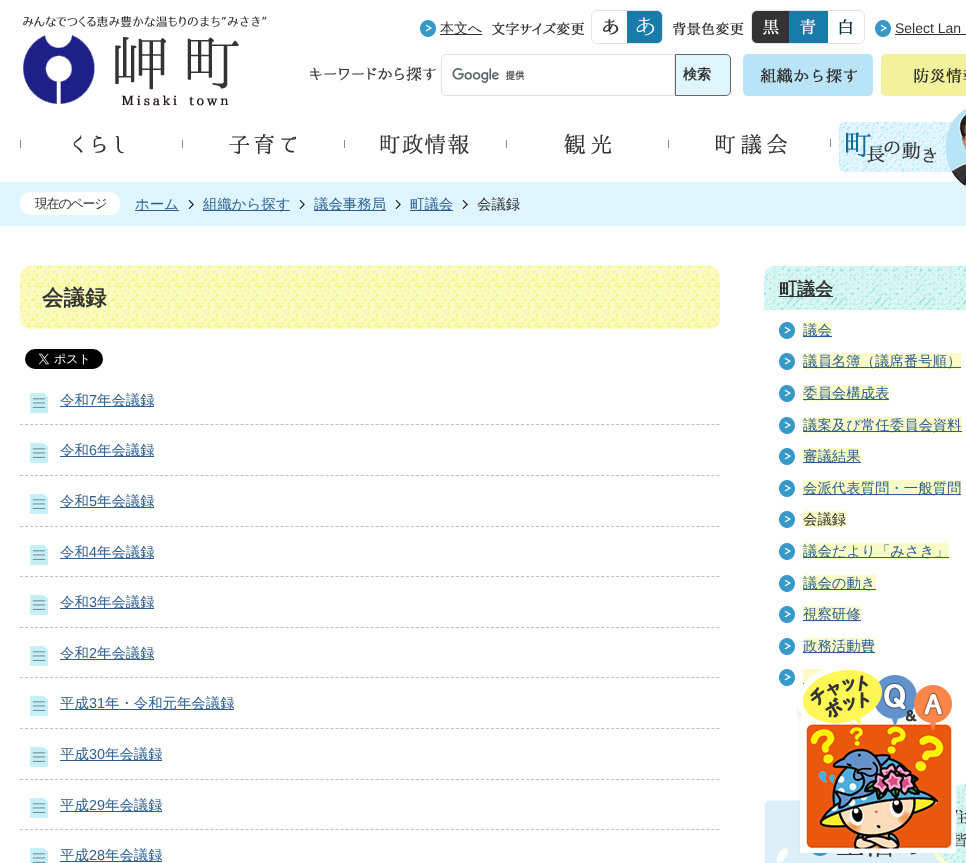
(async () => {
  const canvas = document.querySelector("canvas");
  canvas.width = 966;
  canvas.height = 863;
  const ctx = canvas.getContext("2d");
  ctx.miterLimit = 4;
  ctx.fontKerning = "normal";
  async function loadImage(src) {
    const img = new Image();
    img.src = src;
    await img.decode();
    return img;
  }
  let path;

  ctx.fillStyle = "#ffffff";
  ctx.fillRect(0, 0, 966, 863);
  ctx.drawImage(await loadImage("img/1.png"), 23, 16, 244, 90);
  ctx.drawImage(await loadImage("img/2.png"), 420, 20, 16, 17);
  ctx.fillStyle = "#333333";
  ctx.fillRect(440, 34, 42, 1);
  ctx.drawImage(await loadImage("img/3.png"), 492, 22, 92, 14);
  ctx.drawImage(await loadImage("img/4.png"), 591, 10, 36, 34);
  ctx.drawImage(await loadImage("img/5.png"), 627, 10, 36, 34);
  ctx.drawImage(await loadImage("img/6.png"), 673, 22, 71, 14);
  ctx.drawImage(await loadImage("img/7.png"), 751, 10, 38, 34);
  ctx.drawImage(await loadImage("img/8.png"), 789, 10, 39, 34);
  ctx.drawImage(await loadImage("img/9.png"), 828, 10, 37, 34);
  ctx.drawImage(await loadImage("img/2.png"), 875, 20, 16, 17);
  ctx.fillRect(895, 34, 71, 1);
  ctx.drawImage(await loadImage("img/10.png"), 310, 66, 126, 15);
  ctx.beginPath();
  ctx.roundRect(441.5, 54.5, 233, 41, [4.5, 0, 0, 4.5]);
  ctx.strokeStyle = "#e2e2e2";
  ctx.stroke();
  ctx.drawImage(await loadImage("img/11.png"), 452, 68, 73, 15);
  ctx.fillStyle = "#dff5ff";
  ctx.beginPath();
  ctx.roundRect(675.5, 54.5, 55, 41, [0, 4.5, 4.5, 0]);
  ctx.fill();
  ctx.strokeStyle = "#666666";
  ctx.stroke();
  ctx.drawImage(await loadImage("img/12.png"), 743, 54, 130, 42);
  ctx.drawImage(await loadImage("img/13.png"), 881, 54, 85, 42);
  ctx.fillStyle = "#8a8a8a";
  ctx.fillRect(20, 140, 1, 8);
  ctx.drawImage(await loadImage("img/14.png"), 73, 135, 51, 19);
  ctx.fillRect(182, 140, 1, 8);
  ctx.drawImage(await loadImage("img/15.png"), 229, 134, 67, 21);
  ctx.fillRect(344, 140, 1, 8);
  ctx.drawImage(await loadImage("img/16.png"), 380, 134, 89, 21);
  ctx.fillRect(506, 140, 1, 8);
  ctx.drawImage(await loadImage("img/17.png"), 564, 134, 48, 21);
  ctx.fillRect(668, 140, 1, 8);
  ctx.drawImage(await loadImage("img/18.png"), 716, 134, 71, 21);
  ctx.fillRect(830, 139, 1, 8);
  ctx.fillStyle = "#dff5ff";
  ctx.fillRect(0, 182, 966, 44);
  ctx.drawImage(await loadImage("img/19.png"), 839, 108, 127, 78);
  ctx.fillStyle = "#ffffff";
  ctx.beginPath();
  ctx.roundRect(20, 192, 100, 23, 10);
  ctx.fill();
  ctx.fillStyle = "#2d5f92";
  ctx.fillRect(135, 210, 44, 1);
  ctx.drawImage(await loadImage("img/20.png"), 188, 200, 6, 9);
  ctx.fillRect(203, 210, 87, 1);
  ctx.drawImage(await loadImage("img/20.png"), 299, 200, 6, 9);
  ctx.fillRect(314, 210, 72, 1);
  ctx.drawImage(await loadImage("img/20.png"), 395, 200, 6, 9);
  ctx.fillRect(410, 210, 43, 1);
  ctx.drawImage(await loadImage("img/20.png"), 462, 200, 6, 9);
  ctx.drawImage(await loadImage("img/21.png"), 20, 266, 700, 63);
  ctx.drawImage(await loadImage("img/22.png"), 25, 349, 78, 20);
  ctx.drawImage(await loadImage("img/23.png"), 30, 393, 18, 20);
  path = new Path2D("M20 424.5H720");
  ctx.strokeStyle = "#bfbfbf";
  ctx.setLineDash([3, 2.01]);
  ctx.stroke(path);
  ctx.fillRect(60, 406, 94, 1);
  ctx.drawImage(await loadImage("img/23.png"), 30, 443, 18, 20);
  path = new Path2D("M20 475.5H720");
  ctx.stroke(path);
  ctx.fillRect(60, 456, 94, 1);
  ctx.drawImage(await loadImage("img/23.png"), 30, 494, 18, 20);
  path = new Path2D("M20 526.5H720");
  ctx.stroke(path);
  ctx.fillRect(60, 507, 94, 1);
  ctx.drawImage(await loadImage("img/23.png"), 30, 545, 18, 20);
  path = new Path2D("M20 576.5H720");
  ctx.stroke(path);
  ctx.fillRect(60, 558, 94, 1);
  ctx.drawImage(await loadImage("img/23.png"), 30, 595, 18, 20);
  path = new Path2D("M20 627.5H720");
  ctx.stroke(path);
  ctx.fillRect(60, 608, 94, 1);
  ctx.drawImage(await loadImage("img/23.png"), 30, 646, 18, 20);
  path = new Path2D("M20 677.5H720");
  ctx.stroke(path);
  ctx.fillRect(60, 659, 94, 1);
  ctx.drawImage(await loadImage("img/23.png"), 30, 696, 18, 20);
  path = new Path2D("M20 728.5H720");
  ctx.stroke(path);
  ctx.fillRect(60, 709, 174, 1);
  ctx.drawImage(await loadImage("img/23.png"), 30, 747, 18, 20);
  path = new Path2D("M20 779.5H720");
  ctx.stroke(path);
  ctx.fillRect(60, 760, 102, 1);
  ctx.drawImage(await loadImage("img/23.png"), 30, 798, 18, 20);
  path = new Path2D("M20 829.5H720");
  ctx.stroke(path);
  ctx.fillRect(60, 811, 102, 1);
  ctx.drawImage(await loadImage("img/24.png"), 30, 848, 18, 15);
  ctx.fillRect(60, 861, 102, 1);
  ctx.drawImage(await loadImage("img/25.png"), 764, 266, 202, 44);
  ctx.fillStyle = "#333333";
  ctx.fillRect(779, 296, 54, 1);
  ctx.drawImage(await loadImage("img/2.png"), 779, 322, 16, 17);
  ctx.fillStyle = "#fbfbc8";
  ctx.fillRect(803, 322, 29, 16);
  ctx.fillStyle = "#2d5f92";
  ctx.fillRect(803, 336, 29, 1);
  ctx.drawImage(await loadImage("img/2.png"), 779, 353, 16, 17);
  ctx.fillStyle = "#fbfbc8";
  ctx.fillRect(803, 353, 158, 16);
  ctx.fillStyle = "#2d5f92";
  ctx.fillRect(803, 367, 158, 1);
  ctx.drawImage(await loadImage("img/2.png"), 779, 385, 16, 17);
  ctx.fillStyle = "#fbfbc8";
  ctx.fillRect(803, 385, 86, 16);
  ctx.fillStyle = "#2d5f92";
  ctx.fillRect(803, 399, 86, 1);
  ctx.drawImage(await loadImage("img/2.png"), 779, 417, 16, 17);
  ctx.fillStyle = "#fbfbc8";
  ctx.fillRect(803, 417, 159, 16);
  ctx.fillStyle = "#2d5f92";
  ctx.fillRect(803, 431, 159, 1);
  ctx.drawImage(await loadImage("img/2.png"), 779, 448, 16, 17);
  ctx.fillStyle = "#fbfbc8";
  ctx.fillRect(803, 448, 58, 16);
  ctx.fillStyle = "#2d5f92";
  ctx.fillRect(803, 462, 58, 1);
  ctx.drawImage(await loadImage("img/2.png"), 779, 480, 16, 17);
  ctx.fillStyle = "#fbfbc8";
  ctx.fillRect(803, 480, 158, 16);
  ctx.fillStyle = "#2d5f92";
  ctx.fillRect(803, 494, 158, 1);
  ctx.drawImage(await loadImage("img/2.png"), 779, 511, 16, 17);
  ctx.fillStyle = "#fbfbc8";
  ctx.fillRect(803, 511, 43, 16);
  ctx.drawImage(await loadImage("img/2.png"), 779, 543, 16, 17);
  ctx.fillRect(803, 543, 146, 16);
  ctx.fillStyle = "#2d5f92";
  ctx.fillRect(803, 557, 146, 1);
  ctx.drawImage(await loadImage("img/2.png"), 779, 575, 16, 17);
  ctx.fillStyle = "#fbfbc8";
  ctx.fillRect(803, 575, 73, 16);
  ctx.fillStyle = "#2d5f92";
  ctx.fillRect(803, 589, 73, 1);
  ctx.drawImage(await loadImage("img/2.png"), 779, 606, 16, 17);
  ctx.fillStyle = "#fbfbc8";
  ctx.fillRect(803, 606, 58, 16);
  ctx.fillStyle = "#2d5f92";
  ctx.fillRect(803, 620, 58, 1);
  ctx.drawImage(await loadImage("img/2.png"), 779, 638, 16, 17);
  ctx.fillStyle = "#fbfbc8";
  ctx.fillRect(803, 638, 72, 16);
  ctx.fillStyle = "#2d5f92";
  ctx.fillRect(803, 652, 72, 1);
  ctx.drawImage(await loadImage("img/2.png"), 779, 669, 16, 17);
  ctx.fillStyle = "#fbfbc8";
  ctx.fillRect(803, 669, 22, 16);
  ctx.fillStyle = "#2d5f92";
  ctx.fillRect(803, 683, 2, 1);
  ctx.drawImage(await loadImage("img/26.png"), 764, 783, 202, 80);
  ctx.drawImage(await loadImage("img/27.png"), 797, 669, 159, 184);
  ctx.font = "500 14px WenQuanYi Zen Hei";
  ctx.fillStyle = "#333333";
  ctx.fillText("本文へ", 440, 33);
  ctx.font = "14px Liberation Sans";
  ctx.fillText("Select Lan", 895, 33);
  ctx.font = "bold 14px WenQuanYi Zen Hei";
  ctx.fillText("検索", 683, 79);
  ctx.letterSpacing = "-1.25px";
  ctx.font = "500 13px WenQuanYi Zen Hei";
  ctx.fillText("現在のページ", 35, 208);
  ctx.letterSpacing = "0px";
  ctx.font = "500 14.4px WenQuanYi Zen Hei";
  ctx.fillStyle = "#2d5f92";
  for (const [text, x, y] of [
    ["ホーム", 135, 209],
    ["組織から探す", 203, 209],
    ["議会事務局", 314, 209],
    ["町議会", 410, 209],
  ]) {
    ctx.fillText(text, x, y);
  }
  ctx.fillStyle = "#333333";
  ctx.fillText("会議録", 477, 209);
  ctx.font = "bold 21.5px WenQuanYi Zen Hei";
  ctx.fillText("会議録", 42, 305);
  ctx.font = "500 14.4px WenQuanYi Zen Hei";
  ctx.fillStyle = "#2d5f92";
  ctx.fillText("令和", 60, 405);
  ctx.font = "14.4px Liberation Sans";
  ctx.fillText("7", 89, 405);
  ctx.font = "500 14.4px WenQuanYi Zen Hei";
  ctx.fillText("年会議録", 97, 405);
  ctx.fillText("令和", 60, 455);
  ctx.font = "14.4px Liberation Sans";
  ctx.fillText("6", 89, 455);
  ctx.font = "500 14.4px WenQuanYi Zen Hei";
  ctx.fillText("年会議録", 97, 455);
  ctx.fillText("令和", 60, 506);
  ctx.font = "14.4px Liberation Sans";
  ctx.fillText("5", 89, 506);
  ctx.font = "500 14.4px WenQuanYi Zen Hei";
  ctx.fillText("年会議録", 97, 506);
  ctx.fillText("令和", 60, 557);
  ctx.font = "14.4px Liberation Sans";
  ctx.fillText("4", 89, 557);
  ctx.font = "500 14.4px WenQuanYi Zen Hei";
  ctx.fillText("年会議録", 97, 557);
  ctx.fillText("令和", 60, 607);
  ctx.font = "14.4px Liberation Sans";
  ctx.fillText("3", 89, 607);
  ctx.font = "500 14.4px WenQuanYi Zen Hei";
  ctx.fillText("年会議録", 97, 607);
  ctx.fillText("令和", 60, 658);
  ctx.font = "14.4px Liberation Sans";
  ctx.fillText("2", 89, 658);
  ctx.font = "500 14.4px WenQuanYi Zen Hei";
  ctx.fillText("年会議録", 97, 658);
  ctx.fillText("平成", 60, 708);
  ctx.font = "14.4px Liberation Sans";
  ctx.fillText("31", 89, 708);
  ctx.font = "500 14.4px WenQuanYi Zen Hei";
  ctx.fillText("年・令和元年会議録", 105, 708);
  ctx.fillText("平成", 60, 759);
  ctx.font = "14.4px Liberation Sans";
  ctx.fillText("30", 89, 759);
  ctx.font = "500 14.4px WenQuanYi Zen Hei";
  ctx.fillText("年会議録", 105, 759);
  ctx.fillText("平成", 60, 810);
  ctx.font = "14.4px Liberation Sans";
  ctx.fillText("29", 89, 810);
  ctx.font = "500 14.4px WenQuanYi Zen Hei";
  ctx.fillText("年会議録", 105, 810);
  ctx.fillText("平成", 60, 860);
  ctx.font = "14.4px Liberation Sans";
  ctx.fillText("28", 89, 860);
  ctx.font = "500 14.4px WenQuanYi Zen Hei";
  ctx.fillText("年会議録", 105, 860);
  ctx.font = "bold 18px WenQuanYi Zen Hei";
  ctx.fillStyle = "#333333";
  ctx.fillText("町議会", 779, 295);
  ctx.font = "500 14.4px WenQuanYi Zen Hei";
  ctx.fillStyle = "#2d5f92";
  for (const [text, x, y] of [
    ["議会", 803, 335],
    ["議員名簿（議席番号順）", 803, 366],
    ["委員会構成表", 803, 398],
    ["議案及び常任委員会資料", 803, 430],
    ["審議結果", 803, 461],
    ["会派代表質問・一般質問", 803, 493],
  ]) {
    ctx.fillText(text, x, y);
  }
  ctx.fillStyle = "#333333";
  ctx.fillText("会議録", 803, 524);
  ctx.fillStyle = "#2d5f92";
  for (const [text, x, y] of [
    ["議会だより「みさき」", 803, 556],
    ["議会の動き", 803, 588],
    ["視察研修", 803, 619],
    ["政務活動費", 803, 651],
  ]) {
    ctx.fillText(text, x, y);
  }
})();
